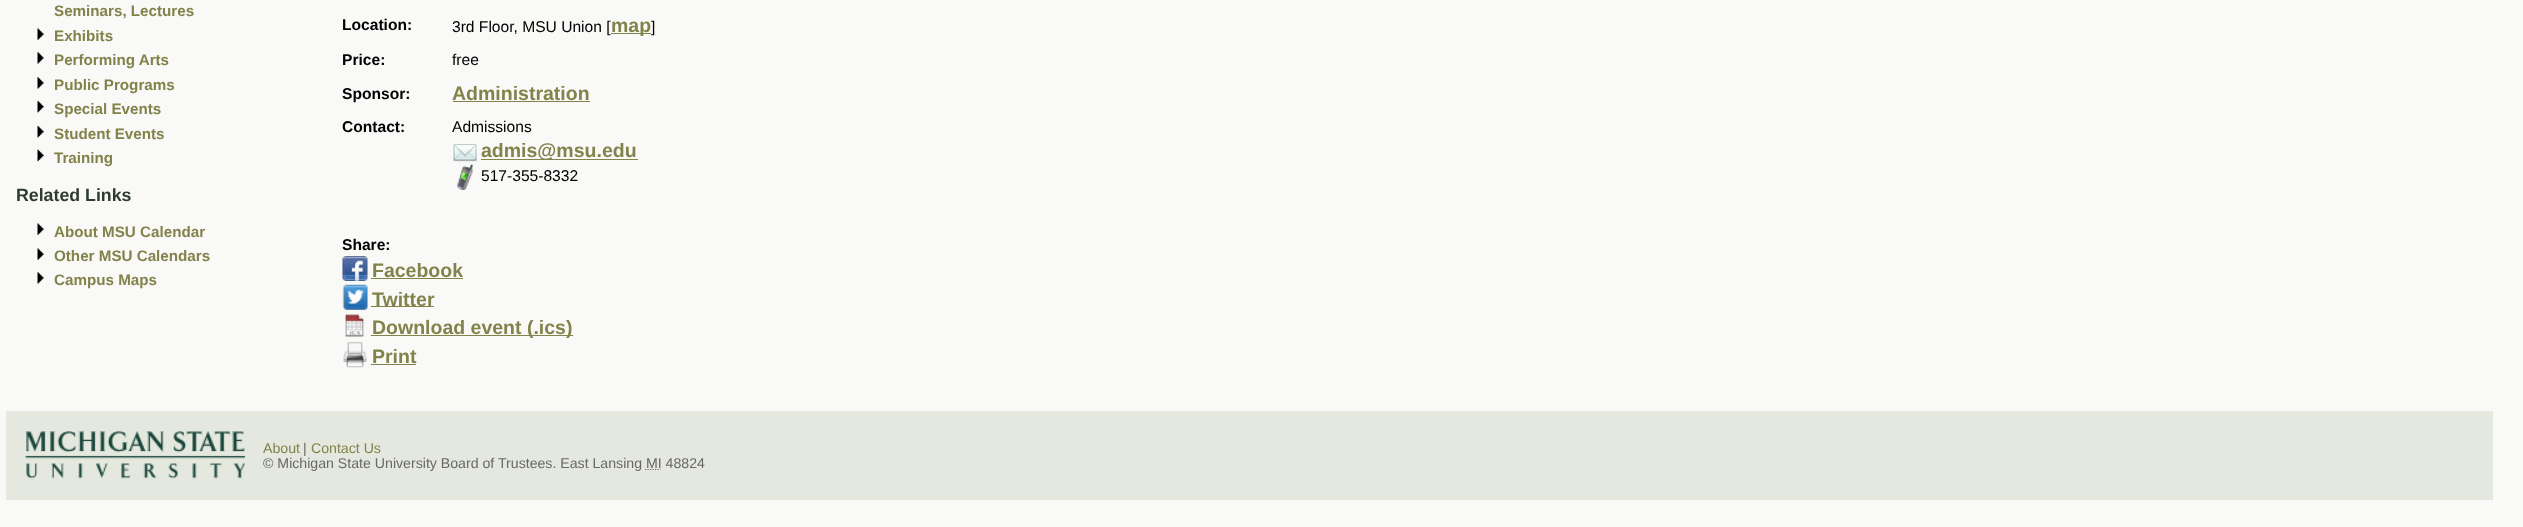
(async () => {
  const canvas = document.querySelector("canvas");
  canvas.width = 2523;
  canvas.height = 527;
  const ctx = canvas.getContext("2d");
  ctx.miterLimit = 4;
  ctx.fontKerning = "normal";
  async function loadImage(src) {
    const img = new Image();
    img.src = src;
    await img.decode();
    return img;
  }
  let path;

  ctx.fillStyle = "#f9f9f7";
  ctx.fillRect(0, 0, 2523, 527);
  ctx.drawImage(await loadImage("img/1.png"), 37, 28, 7, 12);
  ctx.drawImage(await loadImage("img/2.png"), 37, 52, 7, 12);
  ctx.drawImage(await loadImage("img/2.png"), 37, 77, 7, 12);
  ctx.drawImage(await loadImage("img/3.png"), 37, 100, 7, 13);
  ctx.drawImage(await loadImage("img/3.png"), 37, 125, 7, 13);
  ctx.drawImage(await loadImage("img/4.png"), 37, 149, 7, 13);
  ctx.drawImage(await loadImage("img/1.png"), 37, 223, 7, 12);
  ctx.drawImage(await loadImage("img/1.png"), 37, 248, 7, 12);
  ctx.drawImage(await loadImage("img/2.png"), 37, 272, 7, 12);
  ctx.fillStyle = "#82824b";
  ctx.fillRect(611, 33, 40, 1);
  ctx.fillRect(453, 101, 137, 1);
  ctx.drawImage(await loadImage("img/5.png"), 452, 144, 26, 18);
  ctx.fillRect(481, 159, 157, 1);
  ctx.drawImage(await loadImage("img/6.png"), 457, 164, 16, 26);
  ctx.drawImage(await loadImage("img/7.png"), 342, 256, 26, 25);
  ctx.fillRect(371, 278, 92, 1);
  ctx.drawImage(await loadImage("img/8.png"), 342, 284, 26, 26);
  ctx.fillRect(371, 306, 63, 1);
  ctx.drawImage(await loadImage("img/9.png"), 342, 314, 22, 23);
  ctx.fillRect(371, 335, 202, 1);
  ctx.drawImage(await loadImage("img/10.png"), 343, 342, 24, 26);
  ctx.fillRect(371, 364, 45, 1);
  ctx.fillStyle = "#e4e8de";
  ctx.fillRect(6, 411, 2487, 89);
  ctx.drawImage(await loadImage("img/11.png"), 25, 431, 220, 48);
  path = new Path2D("M645 469.5H660.5");
  ctx.strokeStyle = "#686963";
  ctx.lineWidth = 1.2;
  ctx.setLineDash([1.25, 1.25]);
  ctx.stroke(path);
  ctx.font = "bold 15.2px Liberation Sans";
  ctx.fillStyle = "#82824b";
  for (const [text, x, y] of [
    ["Seminars, Lectures", 54, 16],
    ["Exhibits", 54, 41],
    ["Performing Arts", 54, 65],
    ["Public Programs", 54, 90],
    ["Special Events", 54, 114],
    ["Student Events", 54, 139],
    ["Training", 54, 163],
  ]) {
    ctx.fillText(text, x, y);
  }
  ctx.font = "bold 17.75px Liberation Sans";
  ctx.fillStyle = "#2d3c2d";
  ctx.fillText("Related Links", 16, 201);
  ctx.font = "bold 15.2px Liberation Sans";
  ctx.fillStyle = "#82824b";
  for (const [text, x, y] of [
    ["About MSU Calendar", 54, 237],
    ["Other MSU Calendars", 54, 261],
    ["Campus Maps", 54, 285],
  ]) {
    ctx.fillText(text, x, y);
  }
  ctx.font = "bold 15.6px Liberation Sans";
  ctx.fillStyle = "#000000";
  ctx.fillText("Location:", 342, 30);
  ctx.font = "15.6px Liberation Sans";
  ctx.fillText("3rd Floor, MSU Union [", 452, 32);
  ctx.font = "bold 19.5px Liberation Sans";
  ctx.fillStyle = "#82824b";
  ctx.fillText("map", 611, 32);
  ctx.font = "15.6px Liberation Sans";
  ctx.fillStyle = "#000000";
  ctx.fillText("]", 651, 32);
  ctx.font = "bold 15.6px Liberation Sans";
  ctx.fillText("Price:", 342, 65);
  ctx.font = "15.6px Liberation Sans";
  ctx.fillText("free", 452, 65);
  ctx.font = "bold 15.6px Liberation Sans";
  ctx.fillText("Sponsor:", 342, 99);
  ctx.font = "bold 19.5px Liberation Sans";
  ctx.fillStyle = "#82824b";
  ctx.fillText("Administration", 452, 100);
  ctx.font = "bold 15.6px Liberation Sans";
  ctx.fillStyle = "#000000";
  ctx.fillText("Contact:", 342, 132);
  ctx.font = "15.6px Liberation Sans";
  ctx.fillText("Admissions", 452, 132);
  ctx.font = "bold 19.5px Liberation Sans";
  ctx.fillStyle = "#82824b";
  ctx.fillText("admis@msu.edu", 481, 157);
  ctx.font = "15.6px Liberation Sans";
  ctx.fillStyle = "#000000";
  ctx.fillText("517-355-8332", 481, 181);
  ctx.font = "bold 15.6px Liberation Sans";
  ctx.fillText("Share:", 342, 250);
  ctx.font = "bold 19.5px Liberation Sans";
  ctx.fillStyle = "#82824b";
  for (const [text, x, y] of [
    ["Facebook", 372, 277],
    ["Twitter", 372, 306],
    ["Download event (.ics)", 372, 334],
    ["Print", 372, 363],
  ]) {
    ctx.fillText(text, x, y);
  }
  ctx.font = "14.15px Liberation Sans";
  ctx.fillText("About", 263, 453);
  ctx.fillStyle = "#686963";
  ctx.fillText("|", 303, 453);
  ctx.fillStyle = "#82824b";
  ctx.fillText("Contact Us", 311, 453);
  ctx.fillStyle = "#686963";
  ctx.fillText("© Michigan State University Board of Trustees. East Lansing MI 48824", 263, 468);
})();
